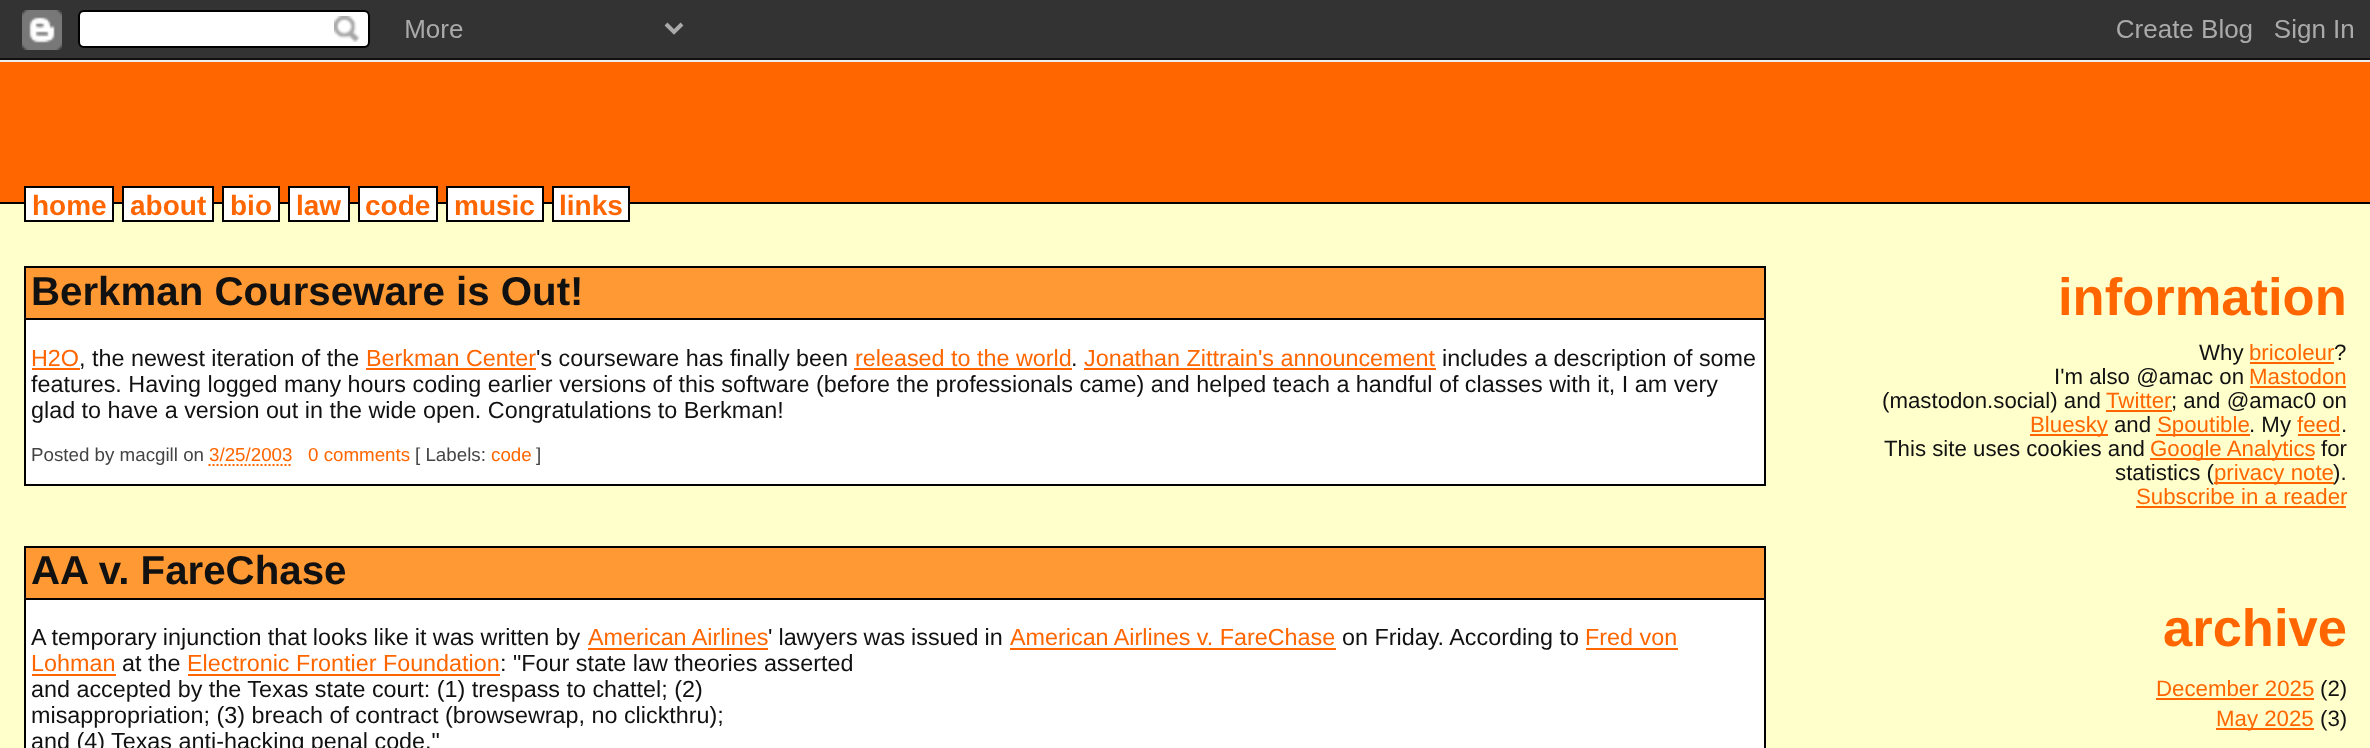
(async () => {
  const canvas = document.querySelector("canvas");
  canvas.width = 2370;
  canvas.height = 748;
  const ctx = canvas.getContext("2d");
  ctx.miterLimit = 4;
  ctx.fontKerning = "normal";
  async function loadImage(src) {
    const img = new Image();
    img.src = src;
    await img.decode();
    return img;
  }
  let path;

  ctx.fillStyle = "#ffffcc";
  ctx.fillRect(0, 0, 2370, 748);
  ctx.drawImage(await loadImage("img/1.png"), 0, 0, 2370, 60);
  for (const [x, y, w, h, color] of [
    [0, 60, 2370, 2, "#eeeeee"],
    [0, 62, 2370, 140, "#ff6600"],
    [0, 202, 2370, 2, "#000000"],
  ]) {
    ctx.fillStyle = color;
    ctx.fillRect(x, y, w, h);
  }
  ctx.fillStyle = "#ffffff";
  ctx.beginPath();
  ctx.rect(25, 187, 88, 34);
  ctx.fill();
  ctx.strokeStyle = "#000000";
  ctx.lineWidth = 2;
  ctx.stroke();
  ctx.beginPath();
  ctx.rect(123, 187, 90, 34);
  ctx.fill();
  ctx.stroke();
  ctx.beginPath();
  ctx.rect(223, 187, 56, 34);
  ctx.fill();
  ctx.stroke();
  ctx.beginPath();
  ctx.rect(289, 187, 60, 34);
  ctx.fill();
  ctx.stroke();
  ctx.beginPath();
  ctx.rect(359, 187, 78, 34);
  ctx.fill();
  ctx.stroke();
  ctx.beginPath();
  ctx.rect(447, 187, 96, 34);
  ctx.fill();
  ctx.stroke();
  ctx.beginPath();
  ctx.rect(553, 187, 76, 34);
  ctx.fill();
  ctx.stroke();
  ctx.fillRect(26, 320, 1738, 164);
  ctx.strokeRect(25, 267, 1740, 218);
  for (const [x, y, w, h, color] of [
    [26, 268, 1738, 50, "#ff9933"],
    [26, 318, 1738, 2, "#000000"],
    [32, 368, 48, 2, "#ff6600"],
    [366, 368, 170, 2, "#ff6600"],
    [854, 368, 218, 2, "#ff6600"],
    [1084, 368, 352, 2, "#ff6600"],
  ]) {
    ctx.fillStyle = color;
    ctx.fillRect(x, y, w, h);
  }
  path = new Path2D("M208.5 465H291.5");
  ctx.strokeStyle = "#ff6600";
  ctx.setLineDash([2, 2]);
  ctx.stroke(path);
  ctx.fillStyle = "#ffffff";
  ctx.fillRect(26, 600, 1738, 148);
  ctx.strokeStyle = "#000000";
  ctx.setLineDash([]);
  ctx.strokeRect(25, 547, 1740, 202);
  for (const [x, y, w, h, color] of [
    [26, 548, 1738, 50, "#ff9933"],
    [26, 598, 1738, 2, "#000000"],
    [588, 648, 180, 2, "#ff6600"],
    [1010, 648, 326, 2, "#ff6600"],
    [1586, 648, 92, 2, "#ff6600"],
    [32, 674, 84, 2, "#ff6600"],
    [188, 674, 312, 2, "#ff6600"],
    [2250, 362, 84, 2, "#ff6600"],
    [2250, 386, 96, 2, "#ff6600"],
    [2106, 410, 66, 2, "#ff6600"],
    [2030, 434, 78, 2, "#ff6600"],
    [2156, 434, 94, 2, "#ff6600"],
    [2298, 434, 42, 2, "#ff6600"],
    [2150, 458, 164, 2, "#ff6600"],
    [2214, 482, 120, 2, "#ff6600"],
    [2136, 506, 210, 2, "#ff6600"],
    [2156, 698, 158, 2, "#ff6600"],
    [2216, 728, 98, 2, "#ff6600"],
  ]) {
    ctx.fillStyle = color;
    ctx.fillRect(x, y, w, h);
  }
  ctx.font = "bold 28px Liberation Sans";
  for (const [text, x, y] of [
    ["home", 32, 215],
    ["about", 130, 215],
    ["bio", 230, 215],
    ["law", 296, 215],
    ["code", 365, 215],
    ["music", 454, 215],
    ["links", 559, 215],
  ]) {
    ctx.fillText(text, x, y);
  }
  ctx.font = "bold 40.25px Liberation Sans";
  ctx.fillStyle = "#111111";
  ctx.fillText("Berkman Courseware is Out!", 31, 305);
  ctx.font = "23.35px Liberation Sans";
  ctx.fillStyle = "#ff6600";
  ctx.fillText("H2O", 31, 366);
  ctx.fillStyle = "#111111";
  ctx.fillText(", the newest iteration of the", 79, 366);
  ctx.fillStyle = "#ff6600";
  ctx.fillText("Berkman Center", 366, 366);
  ctx.fillStyle = "#111111";
  ctx.fillText("'s courseware has finally been", 536, 366);
  ctx.fillStyle = "#ff6600";
  ctx.fillText("released to the world", 855, 366);
  ctx.fillStyle = "#111111";
  ctx.fillText(".", 1071, 366);
  ctx.fillStyle = "#ff6600";
  ctx.fillText("Jonathan Zittrain's announcement", 1084, 366);
  ctx.fillStyle = "#111111";
  for (const [text, x, y] of [
    ["includes a description of some", 1442, 366],
    ["features. Having logged many hours coding earlier versions of this software (before the professionals came) and helped teach a handful of classes with it, I am very", 31, 392],
    ["glad to have a version out in the wide open. Congratulations to Berkman!", 31, 418],
  ]) {
    ctx.fillText(text, x, y);
  }
  ctx.font = "18.75px Liberation Sans";
  ctx.fillStyle = "#444444";
  ctx.fillText("Posted by macgill on", 31, 461);
  ctx.fillStyle = "#ff6600";
  ctx.fillText("3/25/2003", 209, 461);
  ctx.fillText("0 comments", 308, 461);
  ctx.fillStyle = "#444444";
  ctx.fillText("[ Labels:", 415, 461);
  ctx.fillStyle = "#ff6600";
  ctx.fillText("code", 491, 461);
  ctx.fillStyle = "#444444";
  ctx.fillText("]", 536, 461);
  ctx.font = "bold 40.25px Liberation Sans";
  ctx.fillStyle = "#111111";
  ctx.fillText("AA v. FareChase", 31, 584);
  ctx.wordSpacing = "-0.25px";
  ctx.font = "23.35px Liberation Sans";
  ctx.fillText("A temporary injunction that looks like it was written by", 31, 645);
  ctx.wordSpacing = "0px";
  ctx.fillStyle = "#ff6600";
  ctx.fillText("American Airlines", 588, 645);
  ctx.wordSpacing = "-0.5px";
  ctx.fillStyle = "#111111";
  ctx.fillText("' lawyers was issued in", 768, 645);
  ctx.wordSpacing = "0px";
  ctx.fillStyle = "#ff6600";
  ctx.fillText("American Airlines v. FareChase", 1010, 645);
  ctx.fillStyle = "#111111";
  ctx.fillText("on Friday. According to", 1342, 645);
  ctx.fillStyle = "#ff6600";
  ctx.fillText("Fred von", 1585, 645);
  ctx.fillText("Lohman", 31, 671);
  ctx.fillStyle = "#111111";
  ctx.fillText("at the", 122, 671);
  ctx.fillStyle = "#ff6600";
  ctx.fillText("Electronic Frontier Foundation", 187, 671);
  ctx.fillStyle = "#111111";
  for (const [text, x, y] of [
    [": \"Four state law theories asserted", 500, 671],
    ["and accepted by the Texas state court: (1) trespass to chattel; (2)", 31, 697],
    ["misappropriation; (3) breach of contract (browsewrap, no clickthru);", 31, 723],
    ["and (4) Texas anti-hacking penal code.\"", 31, 749],
  ]) {
    ctx.fillText(text, x, y);
  }
  ctx.font = "bold 52.5px Liberation Sans";
  ctx.fillStyle = "#ff6600";
  ctx.fillText("information", 2058, 315);
  ctx.font = "22.25px Liberation Sans";
  ctx.fillStyle = "#111111";
  ctx.fillText("Why", 2199, 360);
  ctx.fillStyle = "#ff6600";
  ctx.fillText("bricoleur", 2249, 360);
  ctx.fillStyle = "#111111";
  ctx.fillText("?", 2334, 360);
  ctx.fillText("I'm also @amac on", 2054, 384);
  ctx.fillStyle = "#ff6600";
  ctx.fillText("Mastodon", 2249, 384);
  ctx.fillStyle = "#111111";
  ctx.fillText("(mastodon.social) and", 1882, 408);
  ctx.fillStyle = "#ff6600";
  ctx.fillText("Twitter", 2106, 408);
  ctx.fillStyle = "#111111";
  ctx.fillText("; and @amac0 on", 2171, 408);
  ctx.fillStyle = "#ff6600";
  ctx.fillText("Bluesky", 2030, 432);
  ctx.fillStyle = "#111111";
  ctx.fillText("and", 2114, 432);
  ctx.fillStyle = "#ff6600";
  ctx.fillText("Spoutible", 2157, 432);
  ctx.fillStyle = "#111111";
  ctx.fillText(". My", 2249, 432);
  ctx.fillStyle = "#ff6600";
  ctx.fillText("feed", 2297, 432);
  ctx.fillStyle = "#111111";
  ctx.fillText(".", 2341, 432);
  ctx.fillText("This site uses cookies and", 1884, 456);
  ctx.fillStyle = "#ff6600";
  ctx.fillText("Google Analytics", 2150, 456);
  ctx.fillStyle = "#111111";
  ctx.fillText("for", 2321, 456);
  ctx.fillText("statistics (", 2115, 480);
  ctx.fillStyle = "#ff6600";
  ctx.fillText("privacy note", 2214, 480);
  ctx.fillStyle = "#111111";
  ctx.fillText(").", 2333, 480);
  ctx.fillStyle = "#ff6600";
  ctx.fillText("Subscribe in a reader", 2136, 504);
  ctx.font = "bold 52.5px Liberation Sans";
  ctx.fillText("archive", 2163, 646);
  ctx.font = "22.25px Liberation Sans";
  ctx.fillText("December 2025", 2156, 696);
  ctx.fillStyle = "#111111";
  ctx.fillText("(2)", 2320, 696);
  ctx.fillStyle = "#ff6600";
  ctx.fillText("May 2025", 2216, 726);
  ctx.fillStyle = "#111111";
  ctx.fillText("(3)", 2320, 726);
})();
